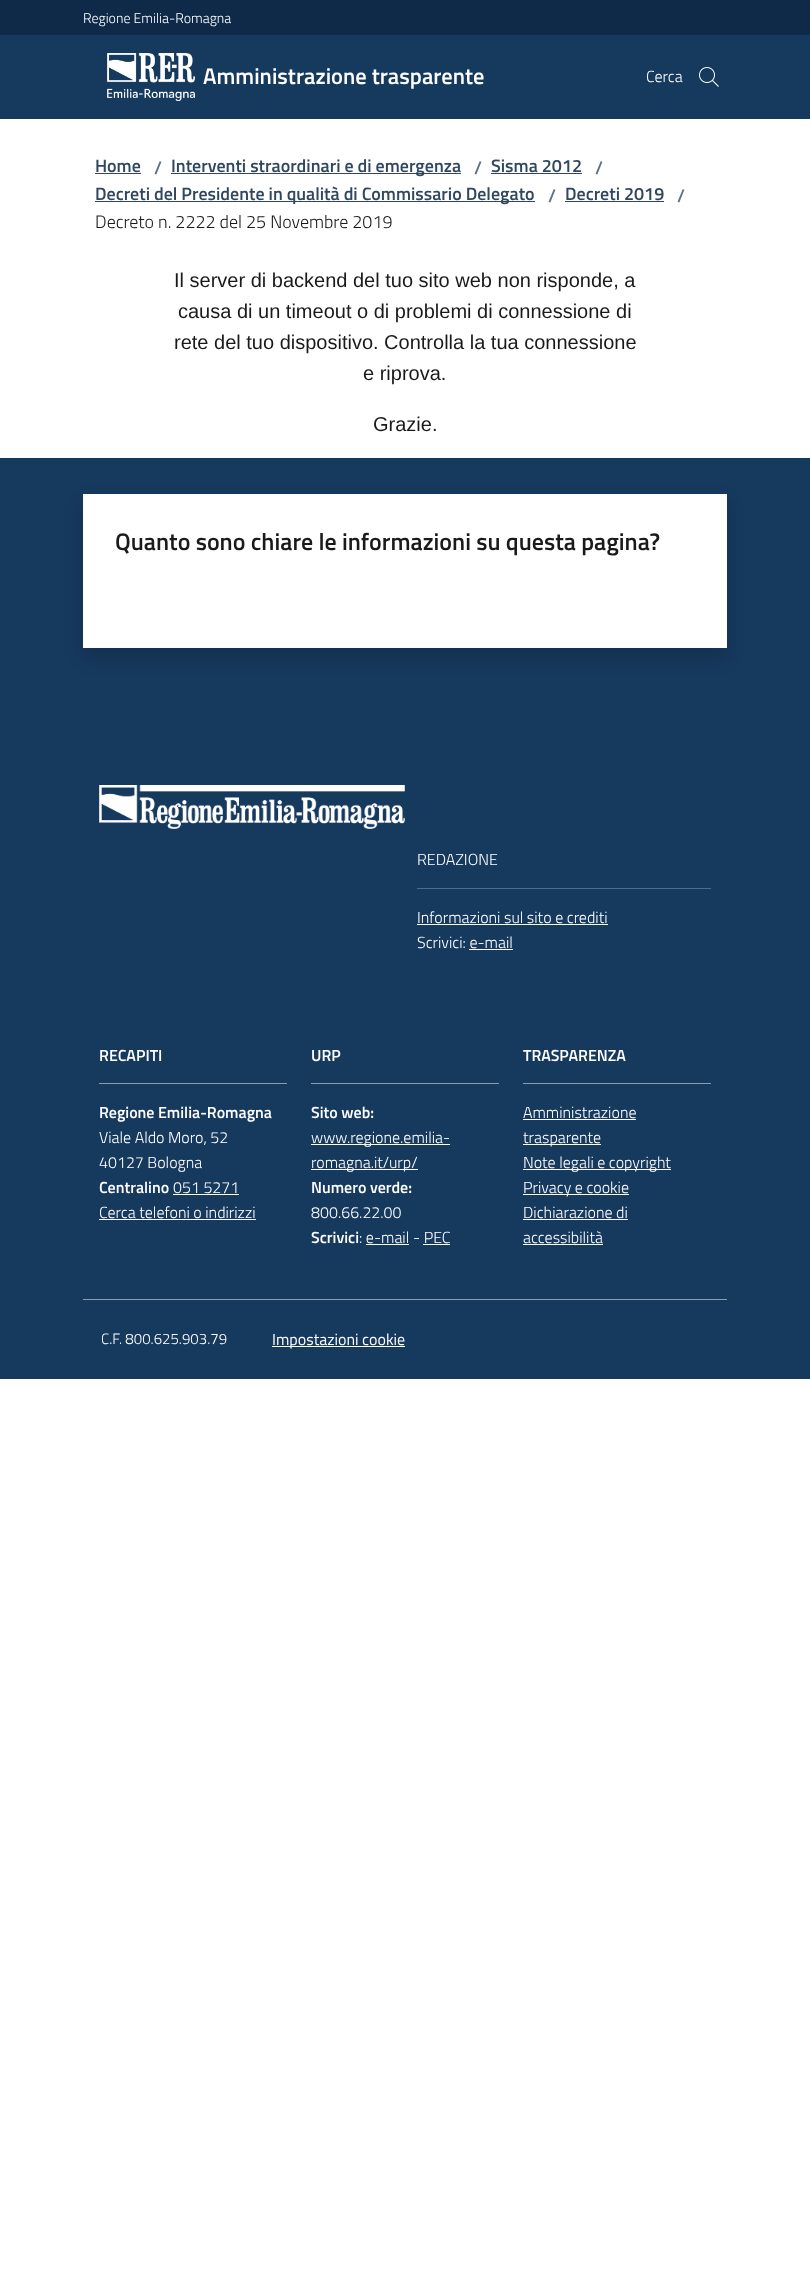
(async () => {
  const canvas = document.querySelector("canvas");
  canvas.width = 810;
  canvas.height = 2277;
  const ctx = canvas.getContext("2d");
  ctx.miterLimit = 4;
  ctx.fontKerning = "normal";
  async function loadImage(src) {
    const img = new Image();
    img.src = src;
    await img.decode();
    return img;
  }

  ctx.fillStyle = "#ffffff";
  ctx.fillRect(0, 0, 810, 2277);
  ctx.fillStyle = "#0f2a48";
  ctx.fillRect(0, 0, 810, 35);
  ctx.fillStyle = "#16395e";
  ctx.fillRect(0, 35, 810, 84);
  ctx.drawImage(await loadImage("img/1.png"), 107, 53, 88, 48);
  ctx.drawImage(await loadImage("img/2.png"), 699, 67, 20, 20);
  for (const [x, y, w, h, color] of [
    [95, 173, 46, 1, "#30475f"],
    [171, 173, 290, 1, "#30475f"],
    [491, 173, 91, 1, "#30475f"],
    [95, 201, 440, 1, "#30475f"],
    [565, 201, 99, 1, "#30475f"],
    [0, 458, 810, 921, "#16395e"],
  ]) {
    ctx.fillStyle = color;
    ctx.fillRect(x, y, w, h);
  }
  ctx.fillStyle = "rgba(0, 0, 0, 0.15)";
  ctx.filter = "blur(9px)";
  ctx.beginPath();
  ctx.rect(83, 503, 644, 154);
  ctx.fill();
  ctx.filter = "none";
  ctx.fillStyle = "#ffffff";
  ctx.fillRect(83, 494, 644, 154);
  ctx.drawImage(await loadImage("img/3.png"), 99, 785, 306, 44);
  for (const [x, y, w, h, color] of [
    [417, 888, 294, 1, "#506b86"],
    [417, 924, 191, 1, "#ffffff"],
    [469, 949, 44, 1, "#ffffff"],
    [99, 1083, 188, 1, "#8b9caf"],
    [173, 1194, 66, 1, "#ffffff"],
    [99, 1219, 157, 1, "#ffffff"],
    [311, 1083, 188, 1, "#8b9caf"],
    [311, 1144, 139, 1, "#ffffff"],
    [311, 1169, 107, 1, "#ffffff"],
    [366, 1244, 43, 1, "#ffffff"],
    [423, 1244, 27, 1, "#ffffff"],
    [523, 1083, 188, 1, "#8b9caf"],
    [523, 1119, 113, 1, "#ffffff"],
    [523, 1144, 78, 1, "#ffffff"],
    [523, 1169, 148, 1, "#ffffff"],
    [523, 1194, 106, 1, "#ffffff"],
    [523, 1219, 105, 1, "#ffffff"],
    [523, 1244, 80, 1, "#ffffff"],
    [83, 1299, 644, 1, "#8b9caf"],
    [272, 1346, 133, 1, "#ffffff"],
  ]) {
    ctx.fillStyle = color;
    ctx.fillRect(x, y, w, h);
  }
  ctx.font = "300 14px Titillium Web";
  ctx.fillText("Regione Emilia-Romagna", 83, 23);
  ctx.font = "600 22.5px Titillium Web";
  ctx.fillText("Amministrazione trasparente", 203, 84);
  ctx.font = "300 16px Titillium Web";
  ctx.fillText("Cerca", 646, 82);
  ctx.font = "600 18px Titillium Web";
  ctx.fillStyle = "#30475f";
  ctx.fillText("Home", 95, 172);
  ctx.fillStyle = "#5d7083";
  ctx.fillText("/", 154, 174);
  ctx.fillStyle = "#30475f";
  ctx.fillText("Interventi straordinari e di emergenza", 171, 172);
  ctx.fillStyle = "#5d7083";
  ctx.fillText("/", 474, 174);
  ctx.fillStyle = "#30475f";
  ctx.fillText("Sisma 2012", 491, 172);
  ctx.fillStyle = "#5d7083";
  ctx.fillText("/", 595, 174);
  ctx.fillStyle = "#30475f";
  ctx.fillText("Decreti del Presidente in qualità di Commissario Delegato", 95, 200);
  ctx.fillStyle = "#5d7083";
  ctx.fillText("/", 548, 202);
  ctx.fillStyle = "#30475f";
  ctx.fillText("Decreti 2019", 565, 200);
  ctx.fillStyle = "#5d7083";
  ctx.fillText("/", 677, 202);
  ctx.font = "300 18px Titillium Web";
  ctx.fillStyle = "#1a1a1a";
  ctx.fillText("Decreto n. 2222 del 25 Novembre 2019", 95, 228);
  ctx.font = "20px Liberation Sans";
  for (const [text, x, y] of [
    ["Il server di backend del tuo sito web non risponde, a", 174, 287],
    ["causa di un timeout o di problemi di connessione di", 178, 318],
    ["rete del tuo dispositivo. Controlla la tua connessione", 174, 349],
    ["e riprova.", 363, 380],
    ["Grazie.", 373, 431],
  ]) {
    ctx.fillText(text, x, y);
  }
  ctx.font = "600 24px Titillium Web";
  ctx.fillText("Quanto sono chiare le informazioni su questa pagina?", 115, 550);
  ctx.font = "300 16px Titillium Web";
  ctx.fillStyle = "#ffffff";
  for (const [text, x, y] of [
    ["REDAZIONE", 417, 865],
    ["Informazioni sul sito e crediti", 417, 923],
    ["Scrivici: e-mail", 417, 948],
  ]) {
    ctx.fillText(text, x, y);
  }
  ctx.font = "600 16px Titillium Web";
  ctx.fillText("RECAPITI", 99, 1061);
  ctx.fillText("Regione Emilia-Romagna", 99, 1118);
  ctx.font = "300 16px Titillium Web";
  ctx.fillText("Viale Aldo Moro, 52", 99, 1143);
  ctx.fillText("40127 Bologna", 99, 1168);
  ctx.font = "600 16px Titillium Web";
  ctx.fillText("Centralino", 99, 1193);
  ctx.font = "300 16px Titillium Web";
  ctx.fillText("051 5271", 173, 1193);
  ctx.fillText("Cerca telefoni o indirizzi", 99, 1218);
  ctx.font = "600 16px Titillium Web";
  ctx.fillText("URP", 311, 1061);
  ctx.fillText("Sito web:", 311, 1118);
  ctx.font = "300 16px Titillium Web";
  ctx.fillText("www.regione.emilia-", 311, 1143);
  ctx.fillText("romagna.it/urp/", 311, 1168);
  ctx.font = "600 16px Titillium Web";
  ctx.fillText("Numero verde:", 311, 1193);
  ctx.font = "300 16px Titillium Web";
  ctx.fillText("800.66.22.00", 311, 1218);
  ctx.font = "600 16px Titillium Web";
  ctx.fillText("Scrivici", 311, 1243);
  ctx.font = "300 16px Titillium Web";
  ctx.fillText(": e-mail", 359, 1243);
  ctx.fillText("- PEC", 413, 1243);
  ctx.font = "600 16px Titillium Web";
  ctx.fillText("TRASPARENZA", 523, 1061);
  ctx.font = "300 16px Titillium Web";
  for (const [text, x, y] of [
    ["Amministrazione", 523, 1118],
    ["trasparente", 523, 1143],
    ["Note legali e copyright", 523, 1168],
    ["Privacy e cookie", 523, 1193],
    ["Dichiarazione di", 523, 1218],
    ["accessibilità", 523, 1243],
  ]) {
    ctx.fillText(text, x, y);
  }
  ctx.font = "300 15px Titillium Web";
  ctx.fillText("C.F. 800.625.903.79", 101, 1344);
  ctx.font = "16px Titillium Web";
  ctx.fillText("Impostazioni cookie", 272, 1345);
})();
